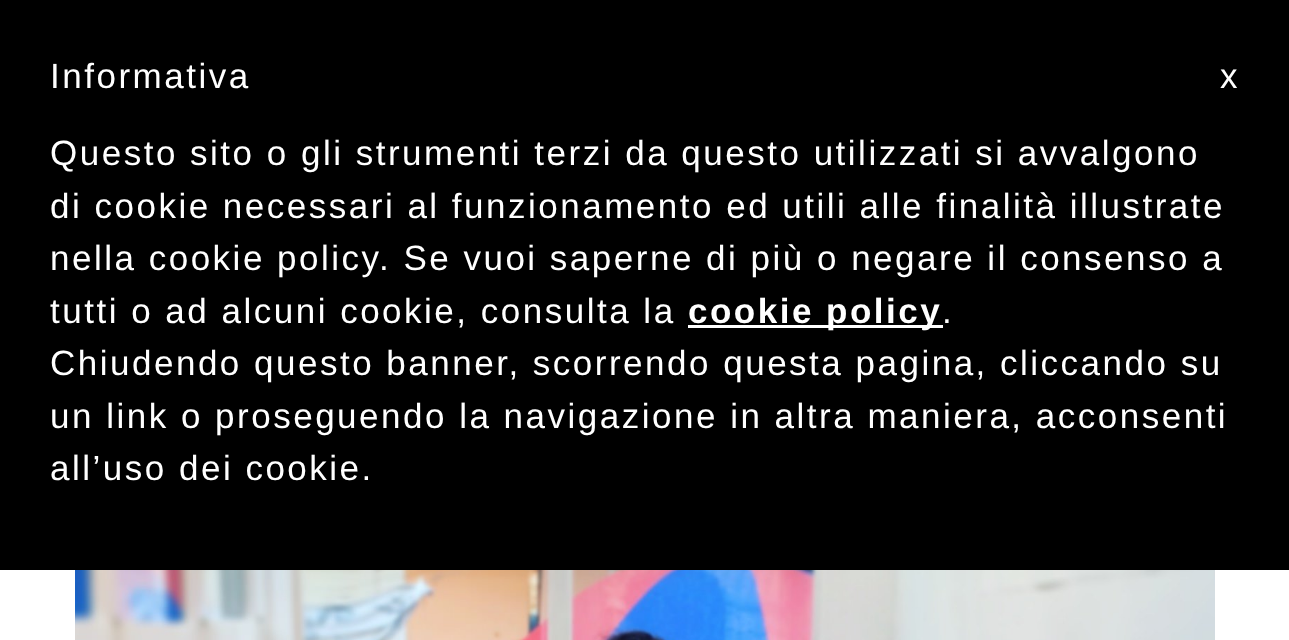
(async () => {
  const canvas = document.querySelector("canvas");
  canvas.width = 1289;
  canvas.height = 640;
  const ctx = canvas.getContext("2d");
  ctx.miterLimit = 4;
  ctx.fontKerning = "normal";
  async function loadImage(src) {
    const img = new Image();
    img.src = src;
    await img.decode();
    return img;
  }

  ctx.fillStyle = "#ffffff";
  ctx.fillRect(0, 0, 1289, 640);
  ctx.fillStyle = "#000000";
  ctx.fillRect(0, 0, 1289, 570);
  ctx.fillStyle = "#ffffff";
  ctx.fillRect(688, 325, 255, 3);
  ctx.drawImage(await loadImage("img/1.png"), 75, 570, 1140, 70);
  ctx.letterSpacing = "2.5px";
  ctx.font = "35px Liberation Sans";
  for (const [text, x, y] of [
    ["Informativa", 50, 88],
    ["Questo sito o gli strumenti terzi da questo utilizzati si avvalgono", 50, 165],
    ["di cookie necessari al funzionamento ed utili alle finalità illustrate", 50, 218],
    ["nella cookie policy. Se vuoi saperne di più o negare il consenso a", 50, 270],
    ["tutti o ad alcuni cookie, consulta la", 50, 323],
  ]) {
    ctx.fillText(text, x, y);
  }
  ctx.font = "bold 35px Liberation Sans";
  ctx.fillText("cookie policy", 688, 323);
  ctx.font = "35px Liberation Sans";
  for (const [text, x, y] of [
    [".", 942, 323],
    ["Chiudendo questo banner, scorrendo questa pagina, cliccando su", 50, 375],
    ["un link o proseguendo la navigazione in altra maniera, acconsenti", 50, 428],
    ["all’uso dei cookie.", 50, 480],
    ["x", 1220, 88],
  ]) {
    ctx.fillText(text, x, y);
  }
})();
